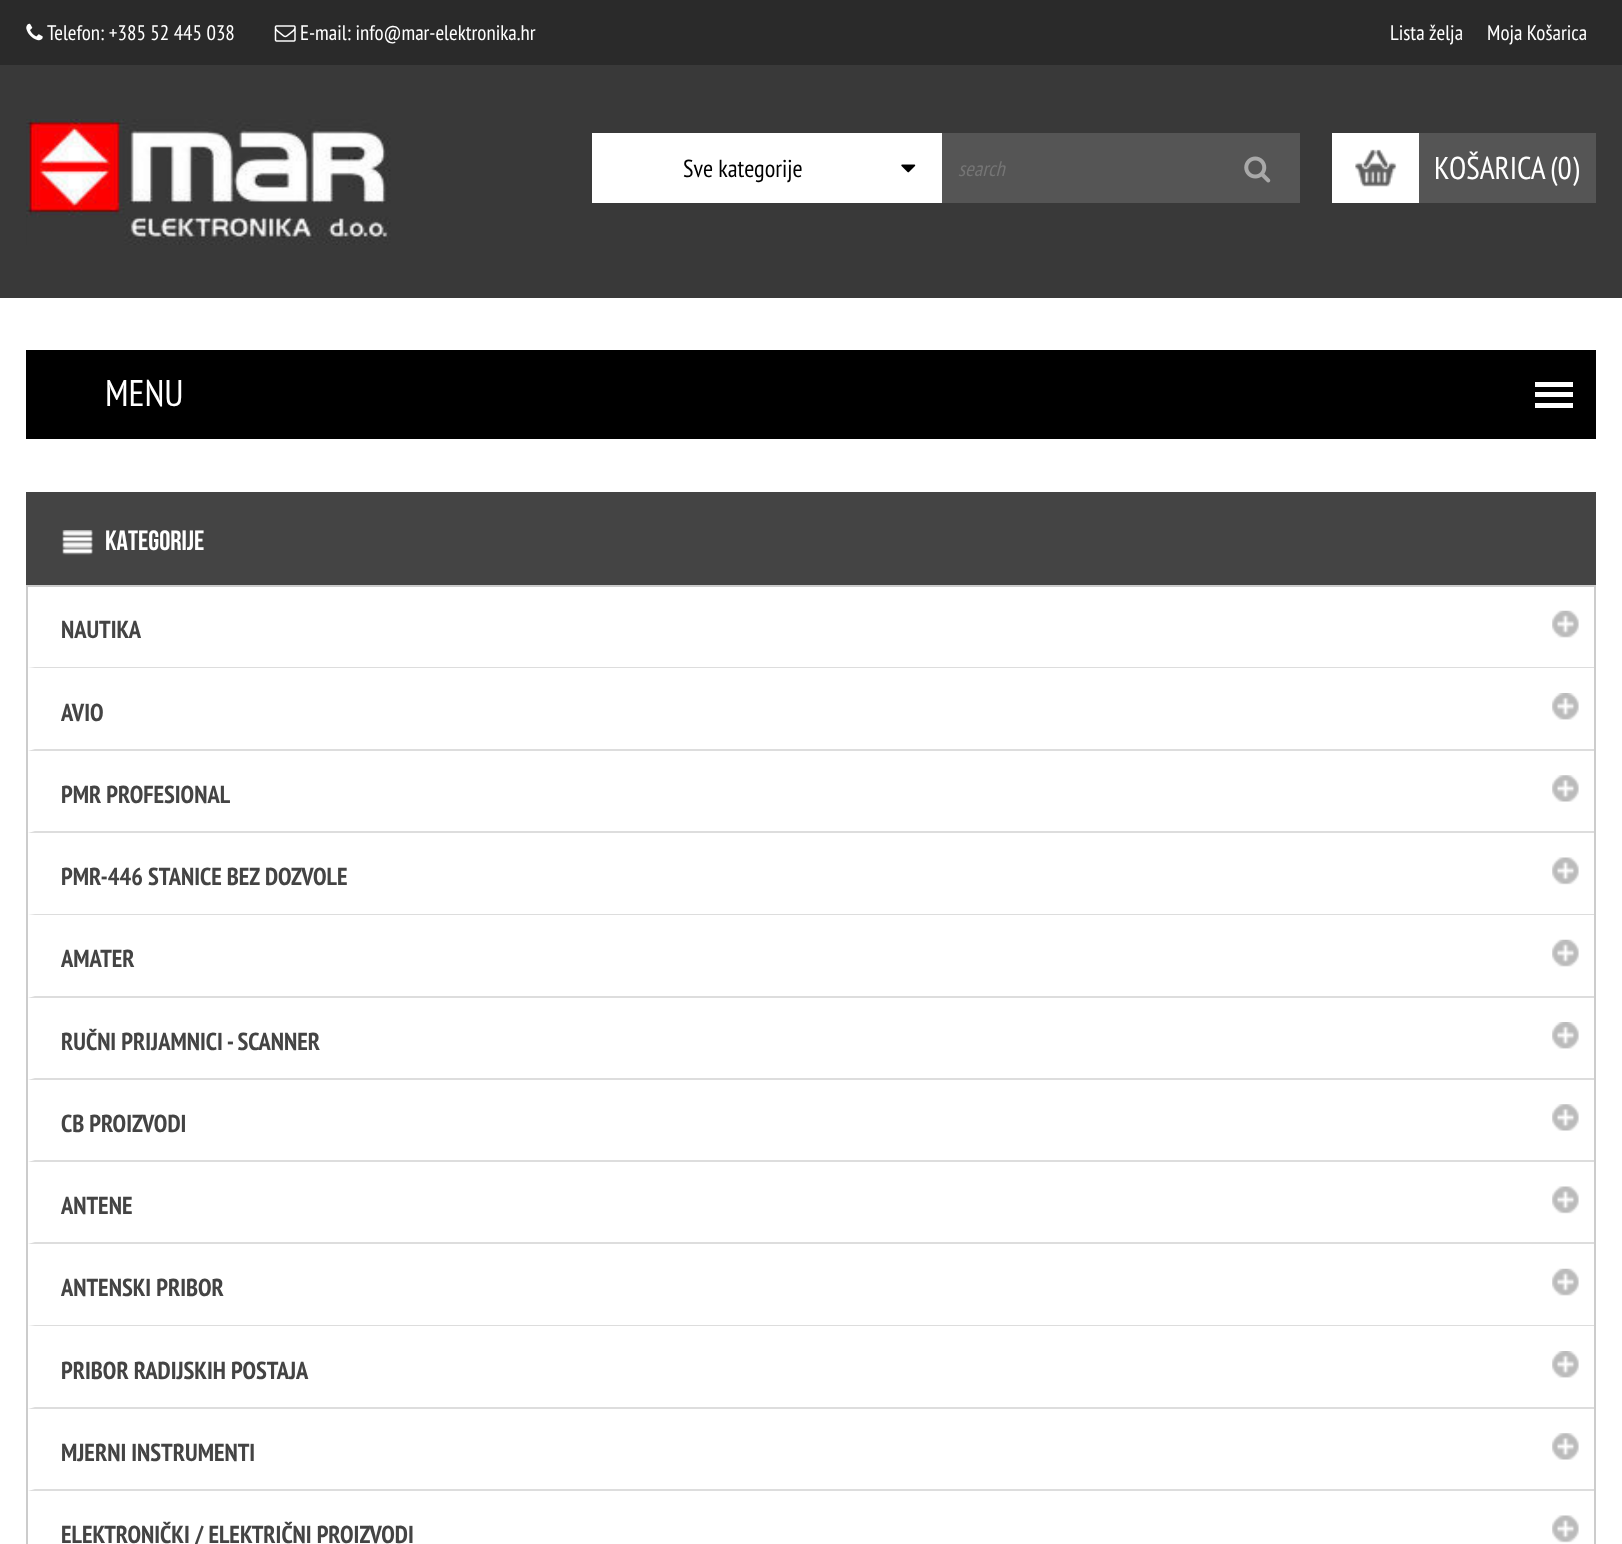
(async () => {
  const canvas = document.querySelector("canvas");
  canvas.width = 1622;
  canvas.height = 1544;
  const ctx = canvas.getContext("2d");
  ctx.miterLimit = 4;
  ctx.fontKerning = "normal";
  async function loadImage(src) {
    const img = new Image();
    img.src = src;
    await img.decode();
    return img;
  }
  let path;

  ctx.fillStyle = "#ffffff";
  ctx.fillRect(0, 0, 1622, 1544);
  ctx.fillStyle = "#2a2a2a";
  ctx.fillRect(0, 0, 1622, 65);
  ctx.drawImage(await loadImage("img/1.png"), 26, 23, 17, 18);
  ctx.drawImage(await loadImage("img/2.png"), 274, 25, 22, 17);
  ctx.fillStyle = "#393939";
  ctx.fillRect(0, 65, 1622, 233);
  ctx.drawImage(await loadImage("img/3.png"), 26, 119, 365, 126);
  ctx.fillStyle = "#ffffff";
  ctx.fillRect(592, 133, 350, 70);
  ctx.drawImage(await loadImage("img/4.png"), 901, 164, 15, 9);
  ctx.fillStyle = "#555555";
  ctx.fillRect(942, 133, 358, 70);
  ctx.drawImage(await loadImage("img/5.png"), 1244, 156, 27, 27);
  ctx.fillStyle = "#ffffff";
  ctx.fillRect(1332, 133, 87, 70);
  ctx.drawImage(await loadImage("img/6.png"), 1355, 149, 42, 38);
  for (const [x, y, w, h, color] of [
    [1419, 133, 177, 70, "#555555"],
    [26, 350, 1570, 89, "#000000"],
    [1535, 382, 38, 5, "#ffffff"],
    [1535, 392, 38, 5, "#ffffff"],
    [1535, 403, 38, 5, "#ffffff"],
    [26, 492, 1570, 93, "#444444"],
  ]) {
    ctx.fillStyle = color;
    ctx.fillRect(x, y, w, h);
  }
  ctx.drawImage(await loadImage("img/7.png"), 62, 530, 31, 25);
  ctx.strokeStyle = "#cccccc";
  ctx.lineWidth = 2;
  ctx.strokeRect(27, 586, 1568, 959);
  ctx.fillStyle = "#dddddd";
  path = new Path2D("M1594 668H28L35 667H1594Z");
  ctx.fill(path);
  ctx.drawImage(await loadImage("img/8.png"), 1552, 610, 27, 28);
  path = new Path2D("M1594 751H28L35 749H1594Z");
  ctx.fill(path);
  ctx.drawImage(await loadImage("img/9.png"), 1552, 693, 27, 27);
  path = new Path2D("M1594 833H28L35 831H1594Z");
  ctx.fill(path);
  ctx.drawImage(await loadImage("img/10.png"), 1552, 775, 27, 27);
  path = new Path2D("M1594 915H28L35 914H1594Z");
  ctx.fill(path);
  ctx.drawImage(await loadImage("img/11.png"), 1552, 857, 27, 28);
  path = new Path2D("M1594 998H28L35 996H1594Z");
  ctx.fill(path);
  ctx.drawImage(await loadImage("img/8.png"), 1552, 939, 27, 28);
  path = new Path2D("M1594 1080H28L35 1078H1594Z");
  ctx.fill(path);
  ctx.drawImage(await loadImage("img/9.png"), 1552, 1022, 27, 27);
  path = new Path2D("M1594 1162H28L35 1160H1594Z");
  ctx.fill(path);
  ctx.drawImage(await loadImage("img/10.png"), 1552, 1104, 27, 27);
  path = new Path2D("M1594 1244H28L35 1242H1594Z");
  ctx.fill(path);
  ctx.drawImage(await loadImage("img/11.png"), 1552, 1186, 27, 28);
  path = new Path2D("M1594 1326H28L35 1325H1594Z");
  ctx.fill(path);
  ctx.drawImage(await loadImage("img/8.png"), 1552, 1268, 27, 28);
  path = new Path2D("M1594 1409H28L35 1407H1594Z");
  ctx.fill(path);
  ctx.drawImage(await loadImage("img/9.png"), 1552, 1351, 27, 27);
  path = new Path2D("M1594 1491H28L35 1489H1594Z");
  ctx.fill(path);
  ctx.drawImage(await loadImage("img/10.png"), 1552, 1433, 27, 27);
  ctx.drawImage(await loadImage("img/11.png"), 1552, 1515, 27, 28);
  ctx.font = "21px PT Sans Narrow";
  ctx.fillStyle = "#ffffff";
  for (const [text, x, y] of [
    ["Telefon: +385 52 445 038", 47, 40],
    ["E-mail: info@mar-elektronika.hr", 300, 40],
    ["Lista želja", 1390, 40],
    ["Moja Košarica", 1487, 40],
  ]) {
    ctx.fillText(text, x, y);
  }
  ctx.font = "24.5px PT Sans Narrow";
  ctx.fillStyle = "#000000";
  ctx.fillText("Sve kategorije", 683, 177);
  ctx.font = "italic 21px PT Sans Narrow";
  ctx.fillStyle = "#757575";
  ctx.fillText("search", 958, 176);
  ctx.wordSpacing = "-1px";
  ctx.font = "31.5px PT Sans Narrow";
  ctx.fillStyle = "#ffffff";
  ctx.fillText("KOŠARICA (0)", 1434, 179);
  ctx.wordSpacing = "0px";
  ctx.font = "37px PT Sans Narrow";
  ctx.fillText("MENU", 105, 406);
  ctx.font = "28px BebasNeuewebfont";
  ctx.fillText("KATEGORIJE", 105, 550);
  ctx.font = "bold 24.5px PT Sans Narrow";
  ctx.fillStyle = "#444444";
  for (const [text, x, y] of [
    ["NAUTIKA", 61, 638],
    ["AVIO", 61, 721],
    ["PMR PROFESIONAL", 61, 803],
    ["PMR-446 STANICE BEZ DOZVOLE", 61, 885],
    ["AMATER", 61, 967],
    ["RUČNI PRIJAMNICI - SCANNER", 61, 1050],
    ["CB PROIZVODI", 61, 1132],
    ["ANTENE", 61, 1214],
    ["ANTENSKI PRIBOR", 61, 1296],
    ["PRIBOR RADIJSKIH POSTAJA", 61, 1379],
    ["MJERNI INSTRUMENTI", 61, 1461],
    ["ELEKTRONIČKI / ELEKTRIČNI PROIZVODI", 61, 1543],
  ]) {
    ctx.fillText(text, x, y);
  }
})();
